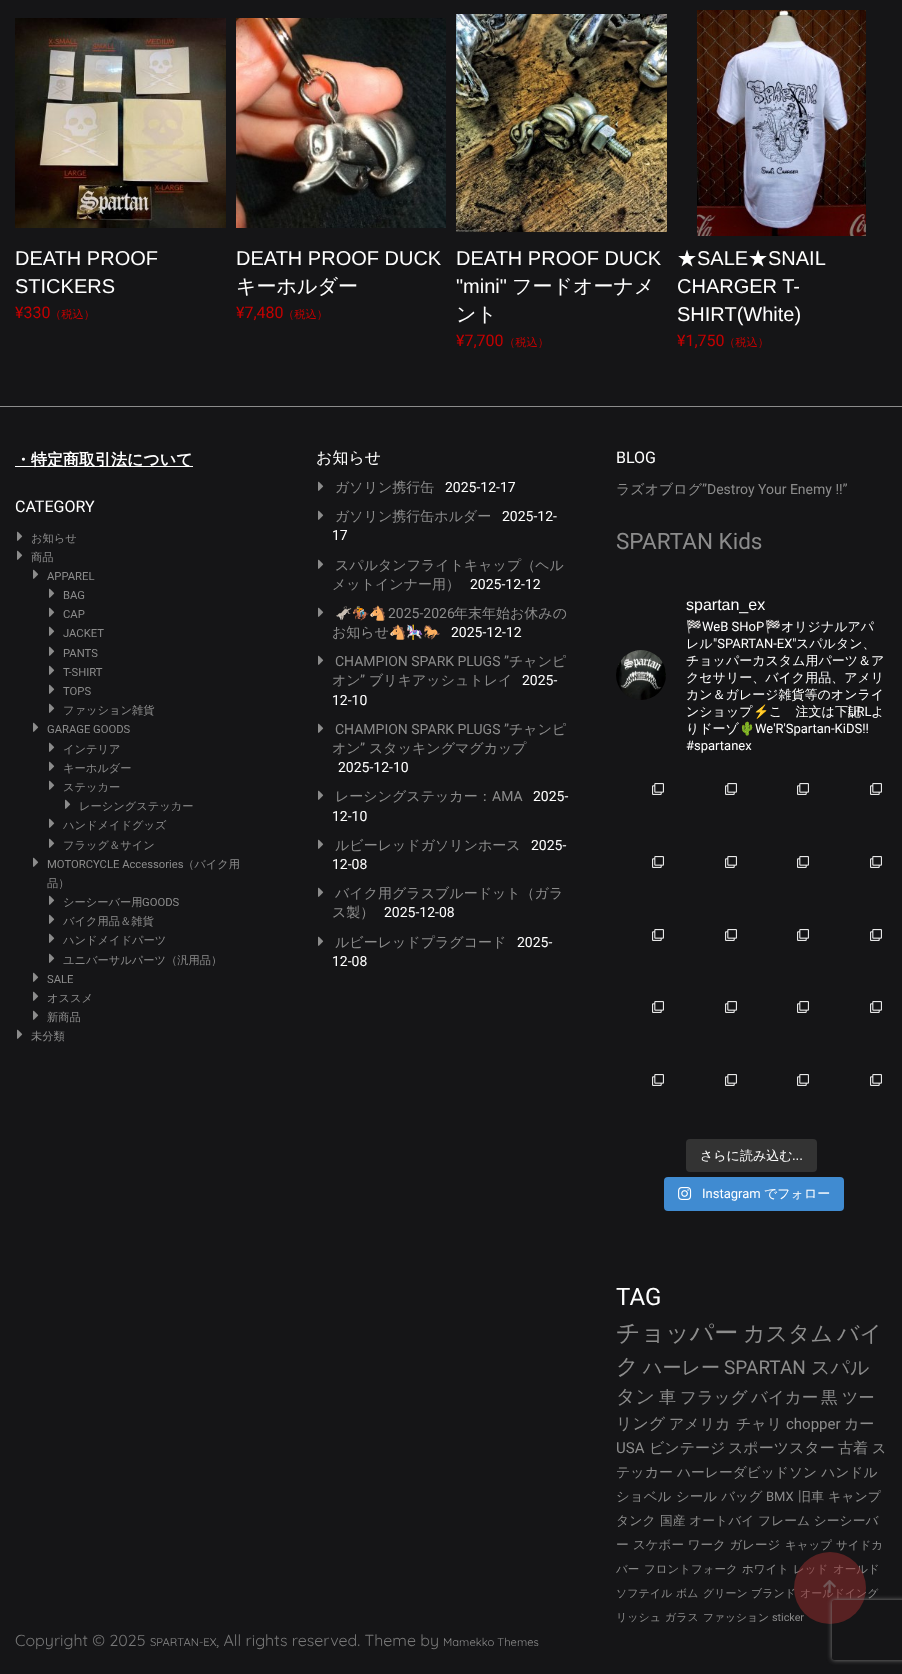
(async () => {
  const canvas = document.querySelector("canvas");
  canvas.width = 902;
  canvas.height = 1674;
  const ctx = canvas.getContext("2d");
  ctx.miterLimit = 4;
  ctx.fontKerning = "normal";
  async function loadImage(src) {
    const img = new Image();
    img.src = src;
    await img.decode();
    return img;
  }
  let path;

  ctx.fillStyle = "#151517";
  ctx.fillRect(0, 0, 902, 1674);
  ctx.drawImage(await loadImage("img/1.png"), 15, 18, 211, 210);
  ctx.drawImage(await loadImage("img/2.png"), 236, 18, 210, 210);
  ctx.drawImage(await loadImage("img/3.png"), 456, 14, 211, 218);
  ctx.drawImage(await loadImage("img/4.png"), 697, 10, 169, 226);
  ctx.fillStyle = "#8c8c8c";
  ctx.fillRect(0, 406, 902, 1);
  ctx.fillStyle = "#ffffff";
  ctx.fillRect(15, 466, 178, 1);
  ctx.drawImage(await loadImage("img/5.png"), 17, 531, 6, 10);
  ctx.drawImage(await loadImage("img/5.png"), 17, 550, 6, 10);
  ctx.drawImage(await loadImage("img/5.png"), 33, 569, 6, 10);
  ctx.drawImage(await loadImage("img/5.png"), 49, 588, 6, 10);
  ctx.drawImage(await loadImage("img/5.png"), 49, 607, 6, 10);
  ctx.drawImage(await loadImage("img/5.png"), 49, 626, 6, 10);
  ctx.drawImage(await loadImage("img/5.png"), 49, 646, 6, 10);
  ctx.drawImage(await loadImage("img/5.png"), 49, 665, 6, 10);
  ctx.drawImage(await loadImage("img/5.png"), 49, 684, 6, 10);
  ctx.drawImage(await loadImage("img/5.png"), 49, 703, 6, 10);
  ctx.drawImage(await loadImage("img/5.png"), 33, 722, 6, 10);
  ctx.drawImage(await loadImage("img/5.png"), 49, 742, 6, 10);
  ctx.drawImage(await loadImage("img/5.png"), 49, 761, 6, 10);
  ctx.drawImage(await loadImage("img/5.png"), 49, 780, 6, 10);
  ctx.drawImage(await loadImage("img/5.png"), 65, 799, 6, 10);
  ctx.drawImage(await loadImage("img/5.png"), 49, 818, 6, 10);
  ctx.drawImage(await loadImage("img/5.png"), 49, 838, 6, 10);
  ctx.drawImage(await loadImage("img/5.png"), 33, 857, 6, 10);
  ctx.drawImage(await loadImage("img/5.png"), 49, 895, 6, 10);
  ctx.drawImage(await loadImage("img/5.png"), 49, 914, 6, 10);
  ctx.drawImage(await loadImage("img/5.png"), 49, 933, 6, 10);
  ctx.drawImage(await loadImage("img/5.png"), 49, 953, 6, 10);
  ctx.drawImage(await loadImage("img/5.png"), 33, 972, 6, 10);
  ctx.drawImage(await loadImage("img/5.png"), 33, 991, 6, 10);
  ctx.drawImage(await loadImage("img/5.png"), 33, 1010, 6, 10);
  ctx.drawImage(await loadImage("img/5.png"), 17, 1029, 6, 10);
  ctx.drawImage(await loadImage("img/5.png"), 318, 481, 6, 10);
  ctx.drawImage(await loadImage("img/5.png"), 318, 510, 6, 10);
  ctx.drawImage(await loadImage("img/5.png"), 318, 559, 6, 10);
  ctx.drawImage(await loadImage("img/5.png"), 318, 607, 6, 10);
  ctx.drawImage(await loadImage("img/5.png"), 318, 655, 6, 10);
  ctx.drawImage(await loadImage("img/5.png"), 318, 723, 6, 10);
  ctx.drawImage(await loadImage("img/5.png"), 318, 790, 6, 10);
  ctx.drawImage(await loadImage("img/5.png"), 318, 839, 6, 10);
  ctx.drawImage(await loadImage("img/5.png"), 318, 887, 6, 10);
  ctx.drawImage(await loadImage("img/5.png"), 318, 936, 6, 10);
  ctx.drawImage(await loadImage("img/6.png"), 616, 650, 50, 50);
  ctx.drawImage(await loadImage("img/7.png"), 652, 783, 12, 12);
  ctx.drawImage(await loadImage("img/7.png"), 725, 783, 12, 12);
  ctx.drawImage(await loadImage("img/7.png"), 797, 783, 12, 12);
  ctx.drawImage(await loadImage("img/7.png"), 870, 783, 12, 12);
  ctx.drawImage(await loadImage("img/7.png"), 652, 856, 12, 12);
  ctx.drawImage(await loadImage("img/7.png"), 725, 856, 12, 12);
  ctx.drawImage(await loadImage("img/7.png"), 797, 856, 12, 12);
  ctx.drawImage(await loadImage("img/7.png"), 870, 856, 12, 12);
  ctx.drawImage(await loadImage("img/7.png"), 652, 929, 12, 12);
  ctx.drawImage(await loadImage("img/7.png"), 725, 929, 12, 12);
  ctx.drawImage(await loadImage("img/7.png"), 797, 929, 12, 12);
  ctx.drawImage(await loadImage("img/7.png"), 870, 929, 12, 12);
  ctx.drawImage(await loadImage("img/7.png"), 652, 1001, 12, 12);
  ctx.drawImage(await loadImage("img/7.png"), 725, 1001, 12, 12);
  ctx.drawImage(await loadImage("img/7.png"), 797, 1001, 12, 12);
  ctx.drawImage(await loadImage("img/7.png"), 870, 1001, 12, 12);
  ctx.drawImage(await loadImage("img/7.png"), 652, 1074, 12, 12);
  ctx.drawImage(await loadImage("img/7.png"), 725, 1074, 12, 12);
  ctx.drawImage(await loadImage("img/7.png"), 797, 1074, 12, 12);
  ctx.drawImage(await loadImage("img/7.png"), 870, 1074, 12, 12);
  ctx.fillStyle = "#333333";
  ctx.beginPath();
  ctx.roundRect(686, 1139, 131, 33, 4);
  ctx.fill();
  ctx.fillStyle = "#408bd1";
  ctx.beginPath();
  ctx.roundRect(664, 1177, 180, 34, 4);
  ctx.fill();
  ctx.drawImage(await loadImage("img/8.png"), 678, 1187, 14, 13);
  ctx.font = "20px Liberation Sans";
  ctx.fillStyle = "#ffffff";
  ctx.fillText("DEATH PROOF", 15, 265);
  ctx.fillText("STICKERS", 15, 293);
  ctx.font = "16px Roboto";
  ctx.fillStyle = "#c50000";
  ctx.fillText("¥330", 15, 318);
  ctx.font = "500 11.25px WenQuanYi Zen Hei";
  ctx.fillText("（税込）", 50, 318);
  ctx.font = "20px Liberation Sans";
  ctx.fillStyle = "#ffffff";
  ctx.fillText("DEATH PROOF DUCK", 236, 265);
  ctx.font = "500 20px WenQuanYi Zen Hei";
  ctx.fillText("キーホルダー", 236, 293);
  ctx.font = "16px Roboto";
  ctx.fillStyle = "#c50000";
  ctx.fillText("¥7,480", 236, 318);
  ctx.font = "500 11.25px WenQuanYi Zen Hei";
  ctx.fillText("（税込）", 283, 318);
  ctx.font = "20px Liberation Sans";
  ctx.fillStyle = "#ffffff";
  ctx.fillText("DEATH PROOF DUCK", 456, 265);
  ctx.fillText("\"mini\"", 456, 293);
  ctx.font = "500 20px WenQuanYi Zen Hei";
  ctx.fillText("フードオーナメ", 512, 293);
  ctx.fillText("ント", 456, 321);
  ctx.font = "16px Roboto";
  ctx.fillStyle = "#c50000";
  ctx.fillText("¥7,700", 456, 346);
  ctx.font = "500 11.25px WenQuanYi Zen Hei";
  ctx.fillText("（税込）", 504, 346);
  ctx.font = "500 20px WenQuanYi Zen Hei";
  ctx.fillStyle = "#ffffff";
  ctx.fillText("★", 677, 265);
  ctx.font = "20px Liberation Sans";
  ctx.fillText("SALE", 697, 265);
  ctx.font = "500 20px WenQuanYi Zen Hei";
  ctx.fillText("★", 748, 265);
  ctx.font = "20px Liberation Sans";
  for (const [text, x, y] of [
    ["SNAIL", 768, 265],
    ["CHARGER T-", 677, 293],
    ["SHIRT(White)", 677, 321],
  ]) {
    ctx.fillText(text, x, y);
  }
  ctx.font = "16px Roboto";
  ctx.fillStyle = "#c50000";
  ctx.fillText("¥1,750", 677, 346);
  ctx.font = "500 11.25px WenQuanYi Zen Hei";
  ctx.fillText("（税込）", 724, 346);
  ctx.font = "bold 16px WenQuanYi Zen Hei";
  ctx.fillStyle = "#ffffff";
  ctx.fillText("・特定商取引法について", 15, 465);
  ctx.font = "16px Roboto";
  ctx.fillText("CATEGORY", 15, 512);
  ctx.font = "500 11.25px WenQuanYi Zen Hei";
  ctx.fillStyle = "#8c8c8c";
  ctx.fillText("お知らせ", 31, 542);
  ctx.fillText("商品", 31, 561);
  ctx.font = "11.25px Roboto";
  for (const [text, x, y] of [
    ["APPAREL", 47, 580],
    ["BAG", 63, 599],
    ["CAP", 63, 618],
    ["JACKET", 63, 637],
    ["PANTS", 63, 657],
    ["T-SHIRT", 63, 676],
    ["TOPS", 63, 695],
  ]) {
    ctx.fillText(text, x, y);
  }
  ctx.font = "500 11.25px WenQuanYi Zen Hei";
  ctx.fillText("ファッション雑貨", 63, 714);
  ctx.font = "11.25px Roboto";
  ctx.fillText("GARAGE GOODS", 47, 733);
  ctx.font = "500 11.25px WenQuanYi Zen Hei";
  for (const [text, x, y] of [
    ["インテリア", 63, 753],
    ["キーホルダー", 63, 772],
    ["ステッカー", 63, 791],
    ["レーシングステッカー", 79, 810],
    ["ハンドメイドグッズ", 63, 829],
    ["フラッグ＆サイン", 63, 849],
  ]) {
    ctx.fillText(text, x, y);
  }
  ctx.font = "11.25px Roboto";
  ctx.fillText("MOTORCYCLE Accessories", 47, 868);
  ctx.font = "500 11.25px WenQuanYi Zen Hei";
  for (const [text, x, y] of [
    ["（バイク用", 183, 868],
    ["品）", 47, 887],
    ["シーシーバー用", 63, 906],
  ]) {
    ctx.fillText(text, x, y);
  }
  ctx.font = "11.25px Roboto";
  ctx.fillText("GOODS", 142, 906);
  ctx.font = "500 11.25px WenQuanYi Zen Hei";
  for (const [text, x, y] of [
    ["バイク用品＆雑貨", 63, 925],
    ["ハンドメイドパーツ", 63, 944],
    ["ユニバーサルパーツ（汎用品）", 63, 964],
  ]) {
    ctx.fillText(text, x, y);
  }
  ctx.font = "11.25px Roboto";
  ctx.fillText("SALE", 47, 983);
  ctx.font = "500 11.25px WenQuanYi Zen Hei";
  for (const [text, x, y] of [
    ["オススメ", 47, 1002],
    ["新商品", 47, 1021],
    ["未分類", 31, 1040],
  ]) {
    ctx.fillText(text, x, y);
  }
  ctx.font = "500 16px WenQuanYi Zen Hei";
  ctx.fillStyle = "#ffffff";
  ctx.fillText("お知らせ", 316, 463);
  ctx.font = "500 14px WenQuanYi Zen Hei";
  ctx.fillStyle = "#8c8c8c";
  ctx.fillText("ガソリン携行缶", 335, 492);
  ctx.font = "14px Roboto";
  ctx.fillStyle = "#ffffff";
  ctx.fillText("2025-12-17", 445, 492);
  ctx.font = "500 14px WenQuanYi Zen Hei";
  ctx.fillStyle = "#8c8c8c";
  ctx.fillText("ガソリン携行缶ホルダー", 335, 521);
  ctx.font = "14px Roboto";
  ctx.fillStyle = "#ffffff";
  ctx.fillText("2025-12-", 502, 521);
  ctx.fillText("17", 332, 540);
  ctx.font = "500 14px WenQuanYi Zen Hei";
  ctx.fillStyle = "#8c8c8c";
  ctx.fillText("スパルタンフライトキャップ（ヘル", 335, 570);
  ctx.fillText("メットインナー用）", 332, 589);
  ctx.font = "14px Roboto";
  ctx.fillStyle = "#ffffff";
  ctx.fillText("2025-12-12", 470, 589);
  ctx.font = "14px Noto Color Emoji";
  ctx.fillStyle = "#8c8c8c";
  ctx.fillText("🫏🏇🐴", 335, 618);
  ctx.font = "14px Roboto";
  ctx.fillText("2025-2026", 388, 618);
  ctx.font = "500 14px WenQuanYi Zen Hei";
  ctx.fillText("年末年始お休みの", 454, 618);
  ctx.fillText("お知らせ", 332, 637);
  ctx.font = "14px Noto Color Emoji";
  ctx.fillText("🐴🎠🐎", 389, 637);
  ctx.font = "14px Roboto";
  ctx.fillStyle = "#ffffff";
  ctx.fillText("2025-12-12", 451, 637);
  ctx.fillStyle = "#8c8c8c";
  ctx.fillText("CHAMPION SPARK PLUGS ”", 335, 666);
  ctx.font = "500 14px WenQuanYi Zen Hei";
  ctx.fillText("チャンピ", 509, 666);
  ctx.fillText("オン", 332, 685);
  ctx.font = "14px Roboto";
  ctx.fillText("”", 360, 685);
  ctx.font = "500 14px WenQuanYi Zen Hei";
  ctx.fillText("ブリキアッシュトレイ", 369, 685);
  ctx.font = "14px Roboto";
  ctx.fillStyle = "#ffffff";
  ctx.fillText("2025-", 522, 685);
  ctx.fillText("12-10", 332, 705);
  ctx.fillStyle = "#8c8c8c";
  ctx.fillText("CHAMPION SPARK PLUGS ”", 335, 734);
  ctx.font = "500 14px WenQuanYi Zen Hei";
  ctx.fillText("チャンピ", 509, 734);
  ctx.fillText("オン", 332, 753);
  ctx.font = "14px Roboto";
  ctx.fillText("”", 360, 753);
  ctx.font = "500 14px WenQuanYi Zen Hei";
  ctx.fillText("スタッキングマグカップ", 369, 753);
  ctx.font = "14px Roboto";
  ctx.fillStyle = "#ffffff";
  ctx.fillText("2025-12-10", 338, 772);
  ctx.font = "500 14px WenQuanYi Zen Hei";
  ctx.fillStyle = "#8c8c8c";
  ctx.fillText("レーシングステッカー：", 335, 801);
  ctx.font = "14px Roboto";
  ctx.fillText("AMA", 492, 801);
  ctx.fillStyle = "#ffffff";
  ctx.fillText("2025-", 533, 801);
  ctx.fillText("12-10", 332, 821);
  ctx.font = "500 14px WenQuanYi Zen Hei";
  ctx.fillStyle = "#8c8c8c";
  ctx.fillText("ルビーレッドガソリンホース", 335, 850);
  ctx.font = "14px Roboto";
  ctx.fillStyle = "#ffffff";
  ctx.fillText("2025-", 531, 850);
  ctx.fillText("12-08", 332, 869);
  ctx.font = "500 14px WenQuanYi Zen Hei";
  ctx.fillStyle = "#8c8c8c";
  ctx.fillText("バイク用グラスブルードット（ガラ", 335, 898);
  ctx.fillText("ス製）", 332, 917);
  ctx.font = "14px Roboto";
  ctx.fillStyle = "#ffffff";
  ctx.fillText("2025-12-08", 384, 917);
  ctx.font = "500 14px WenQuanYi Zen Hei";
  ctx.fillStyle = "#8c8c8c";
  ctx.fillText("ルビーレッドプラグコード", 335, 947);
  ctx.font = "14px Roboto";
  ctx.fillStyle = "#ffffff";
  ctx.fillText("2025-", 517, 947);
  ctx.fillText("12-08", 332, 966);
  ctx.font = "16px Roboto";
  ctx.fillText("BLOG", 616, 463);
  ctx.font = "500 14px WenQuanYi Zen Hei";
  ctx.fillStyle = "#8c8c8c";
  ctx.fillText("ラズオブログ", 616, 494);
  ctx.font = "14px Roboto";
  ctx.fillText("”Destroy Your Enemy !!”", 702, 494);
  ctx.font = "22.5px Roboto";
  ctx.fillText("SPARTAN Kids", 616, 549);
  ctx.font = "16px Liberation Sans";
  ctx.fillStyle = "#ffffff";
  ctx.fillText("spartan_ex", 686, 610);
  ctx.font = "13px Noto Color Emoji";
  ctx.fillText("🏁", 686, 631);
  ctx.font = "13px Roboto";
  ctx.fillText("WeB SHoP", 702, 631);
  ctx.font = "13px Noto Color Emoji";
  ctx.fillText("🏁", 765, 631);
  ctx.font = "500 13px WenQuanYi Zen Hei";
  ctx.fillText("オリジナルアパ", 781, 631);
  ctx.fillText("レル", 686, 648);
  ctx.font = "13px Roboto";
  ctx.fillText("\"SPARTAN-EX\"", 713, 648);
  ctx.font = "500 13px WenQuanYi Zen Hei";
  for (const [text, x, y] of [
    ["スパルタン、", 796, 648],
    ["チョッパーカスタム用パーツ＆ア", 686, 665],
    ["クセサリー、バイク用品、アメリ", 686, 682],
    ["カン＆ガレージ雑貨等のオンライ", 686, 699],
    ["ンショップ", 686, 716],
  ]) {
    ctx.fillText(text, x, y);
  }
  ctx.font = "13px Noto Color Emoji";
  ctx.fillText("⚡️", 753, 716);
  ctx.font = "500 13px WenQuanYi Zen Hei";
  ctx.fillText("ご注文は下記", 769, 716);
  ctx.font = "13px Roboto";
  ctx.fillText("URL", 848, 716);
  ctx.font = "500 13px WenQuanYi Zen Hei";
  ctx.fillText("よ", 871, 716);
  ctx.fillText("りドーゾ", 686, 733);
  ctx.font = "13px Noto Color Emoji";
  ctx.fillText("🌵", 739, 733);
  ctx.font = "13px Roboto";
  ctx.fillText("We'R'Spartan-KiDS!!", 755, 733);
  ctx.fillText("#spartanex", 686, 750);
  ctx.font = "500 13px WenQuanYi Zen Hei";
  ctx.fillText("さらに読み込む", 700, 1160);
  ctx.font = "13px Liberation Sans";
  ctx.fillText("...", 792, 1160);
  ctx.font = "13px Roboto";
  ctx.fillText("Instagram", 702, 1198);
  ctx.font = "500 13px WenQuanYi Zen Hei";
  ctx.fillText("でフォロー", 764, 1198);
  ctx.font = "24px Roboto";
  ctx.fillText("TAG", 616, 1305);
  ctx.font = "500 24px WenQuanYi Zen Hei";
  ctx.fillStyle = "#8c8c8c";
  ctx.fillText("チョッパー", 616, 1341);
  ctx.font = "500 22px WenQuanYi Zen Hei";
  for (const [text, x, y] of [
    ["カスタム", 743, 1341],
    ["バイ", 837, 1341],
    ["ク", 616, 1374],
  ]) {
    ctx.fillText(text, x, y);
  }
  ctx.font = "500 19px WenQuanYi Zen Hei";
  ctx.fillText("ハーレー", 643, 1374);
  ctx.font = "19px Roboto";
  ctx.fillText("SPARTAN", 724, 1374);
  ctx.font = "500 19px WenQuanYi Zen Hei";
  ctx.fillText("スパル", 811, 1374);
  ctx.fillText("タン", 616, 1403);
  ctx.font = "500 17px WenQuanYi Zen Hei";
  ctx.fillText("車", 659, 1403);
  ctx.font = "500 16.5px WenQuanYi Zen Hei";
  for (const [text, x, y] of [
    ["フラッグ", 680, 1403],
    ["バイカー", 751, 1403],
    ["黒", 821, 1403],
  ]) {
    ctx.fillText(text, x, y);
  }
  ctx.font = "500 16px WenQuanYi Zen Hei";
  ctx.fillText("ツー", 842, 1403);
  ctx.fillText("リング", 616, 1429);
  ctx.font = "500 15px WenQuanYi Zen Hei";
  ctx.fillText("アメリカ", 669, 1429);
  ctx.fillText("チャリ", 736, 1429);
  ctx.font = "15px Roboto";
  ctx.fillText("chopper", 786, 1429);
  ctx.font = "500 15px WenQuanYi Zen Hei";
  ctx.fillText("カー", 844, 1429);
  ctx.font = "15px Roboto";
  ctx.fillText("USA", 616, 1453);
  ctx.font = "500 15px WenQuanYi Zen Hei";
  for (const [text, x, y] of [
    ["ビンテージ", 649, 1453],
    ["スポーツスター", 728, 1453],
    ["古着", 838, 1453],
  ]) {
    ctx.fillText(text, x, y);
  }
  ctx.font = "500 14px WenQuanYi Zen Hei";
  ctx.fillText("ス", 872, 1453);
  ctx.fillText("テッカー", 616, 1477);
  ctx.font = "500 13.75px WenQuanYi Zen Hei";
  ctx.fillText("ハーレーダビッドソン ハンドル", 677, 1477);
  ctx.font = "500 13.5px WenQuanYi Zen Hei";
  ctx.fillText("ショベル", 616, 1501);
  ctx.fillText("シール バッグ", 676, 1501);
  ctx.font = "13px Roboto";
  ctx.fillText("BMX", 766, 1501);
  ctx.font = "500 13px WenQuanYi Zen Hei";
  ctx.fillText("旧車 キャンプ", 798, 1501);
  ctx.fillText("タンク", 616, 1525);
  ctx.font = "500 12.75px WenQuanYi Zen Hei";
  ctx.fillText("国産 オートバイ フレーム シーシーバ", 660, 1525);
  ctx.fillText("ー", 616, 1549);
  ctx.font = "500 12.5px WenQuanYi Zen Hei";
  ctx.fillText("スケボー ワーク ガレージ", 633, 1549);
  ctx.font = "500 11.5px WenQuanYi Zen Hei";
  for (const [text, x, y] of [
    ["キャップ", 785, 1549],
    ["サイドカ", 836, 1549],
    ["バー", 616, 1573],
    ["フロントフォーク", 644, 1573],
    ["ホワイト", 742, 1573],
    ["レッド", 793, 1573],
    ["オールド", 833, 1573],
  ]) {
    ctx.fillText(text, x, y);
  }
  ctx.font = "500 11px WenQuanYi Zen Hei";
  for (const [text, x, y] of [
    ["ソフテイル", 616, 1597],
    ["ボム", 676, 1597],
    ["グリーン", 703, 1597],
    ["ブランド", 751, 1597],
    ["オールドイング", 800, 1597],
    ["リッシュ", 616, 1621],
    ["ガラス", 665, 1621],
  ]) {
    ctx.fillText(text, x, y);
  }
  ctx.font = "500 10.75px WenQuanYi Zen Hei";
  ctx.fillText("ファッション", 703, 1621);
  ctx.font = "10.75px Roboto";
  ctx.fillText("sticker", 772, 1621);
  ctx.fillStyle = "rgba(154, 45, 45, 0.5)";
  ctx.beginPath();
  ctx.arc(830, 1588, 36, 0, Math.PI * 2);
  ctx.fill();
  ctx.drawImage(await loadImage("img/9.png"), 823, 1580, 13, 13);
  ctx.font = "16px Quicksand";
  ctx.fillStyle = "#777777";
  ctx.fillText("Copyright © 2025", 15, 1646);
  ctx.font = "11.25px Quicksand";
  ctx.fillStyle = "#8c8c8c";
  ctx.fillText("SPARTAN-EX", 150, 1646);
  ctx.font = "16px Quicksand";
  ctx.fillStyle = "#777777";
  ctx.fillText(", All rights reserved. Theme by", 216, 1646);
  ctx.font = "11.25px Quicksand";
  ctx.fillStyle = "#8c8c8c";
  ctx.fillText("Mamekko Themes", 443, 1646);
  ctx.save();
  path = new Path2D("M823 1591H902V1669H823ZM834 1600H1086C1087 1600 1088 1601 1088 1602V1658C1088 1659 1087 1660 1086 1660H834C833 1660 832 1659 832 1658V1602C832 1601 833 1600 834 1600Z");
  ctx.clip(path, "evenodd");
  ctx.fillStyle = "#808080";
  ctx.filter = "blur(2.5px)";
  ctx.beginPath();
  ctx.roundRect(832, 1600, 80, 60, 2);
  ctx.fill();
  ctx.filter = "none";
  ctx.restore();
})();
